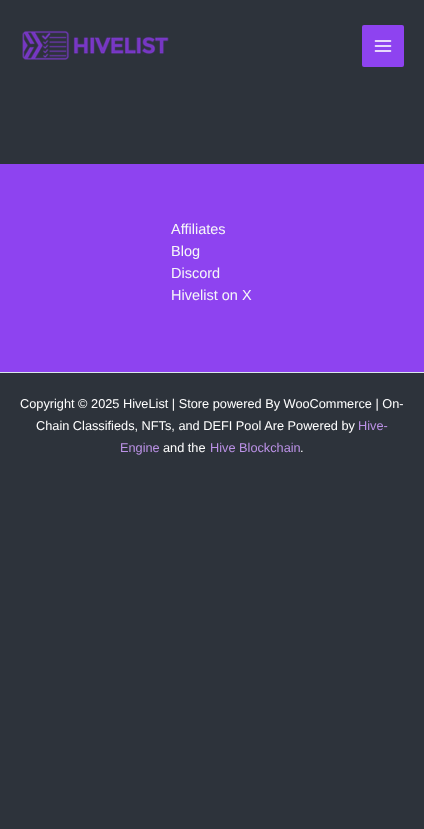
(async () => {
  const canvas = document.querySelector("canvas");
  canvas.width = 424;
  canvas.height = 829;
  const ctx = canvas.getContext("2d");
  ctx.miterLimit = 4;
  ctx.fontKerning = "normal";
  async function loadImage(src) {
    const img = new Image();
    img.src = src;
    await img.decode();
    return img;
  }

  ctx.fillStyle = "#2d333b";
  ctx.fillRect(0, 0, 424, 829);
  ctx.drawImage(await loadImage("img/1.png"), 22, 30, 147, 30);
  ctx.fillStyle = "#8e43f0";
  ctx.beginPath();
  ctx.roundRect(362, 25, 42, 42, 2);
  ctx.fill();
  ctx.drawImage(await loadImage("img/2.png"), 374, 40, 18, 12);
  ctx.fillRect(0, 164, 424, 208);
  ctx.fillStyle = "#dbe8eb";
  ctx.fillRect(0, 372, 424, 1);
  ctx.font = "14.5px Liberation Sans";
  ctx.fillStyle = "#f6f7f8";
  for (const [text, x, y] of [
    ["Affiliates", 171, 234],
    ["Blog", 171, 256],
    ["Discord", 171, 278],
    ["Hivelist on X", 171, 300],
  ]) {
    ctx.fillText(text, x, y);
  }
  ctx.font = "12.75px Liberation Sans";
  ctx.fillStyle = "#ffffff";
  ctx.fillText("Copyright © 2025 HiveList | Store powered By WooCommerce | On-", 20, 408);
  ctx.fillText("Chain Classifieds, NFTs, and DEFI Pool Are Powered by", 36, 430);
  ctx.fillStyle = "#bc92e7";
  ctx.fillText("Hive-", 358, 430);
  ctx.fillText("Engine", 120, 452);
  ctx.fillStyle = "#ffffff";
  ctx.fillText("and the", 163, 452);
  ctx.fillStyle = "#bc92e7";
  ctx.fillText("Hive Blockchain", 210, 452);
  ctx.fillStyle = "#ffffff";
  ctx.fillText(".", 300, 452);
})();
